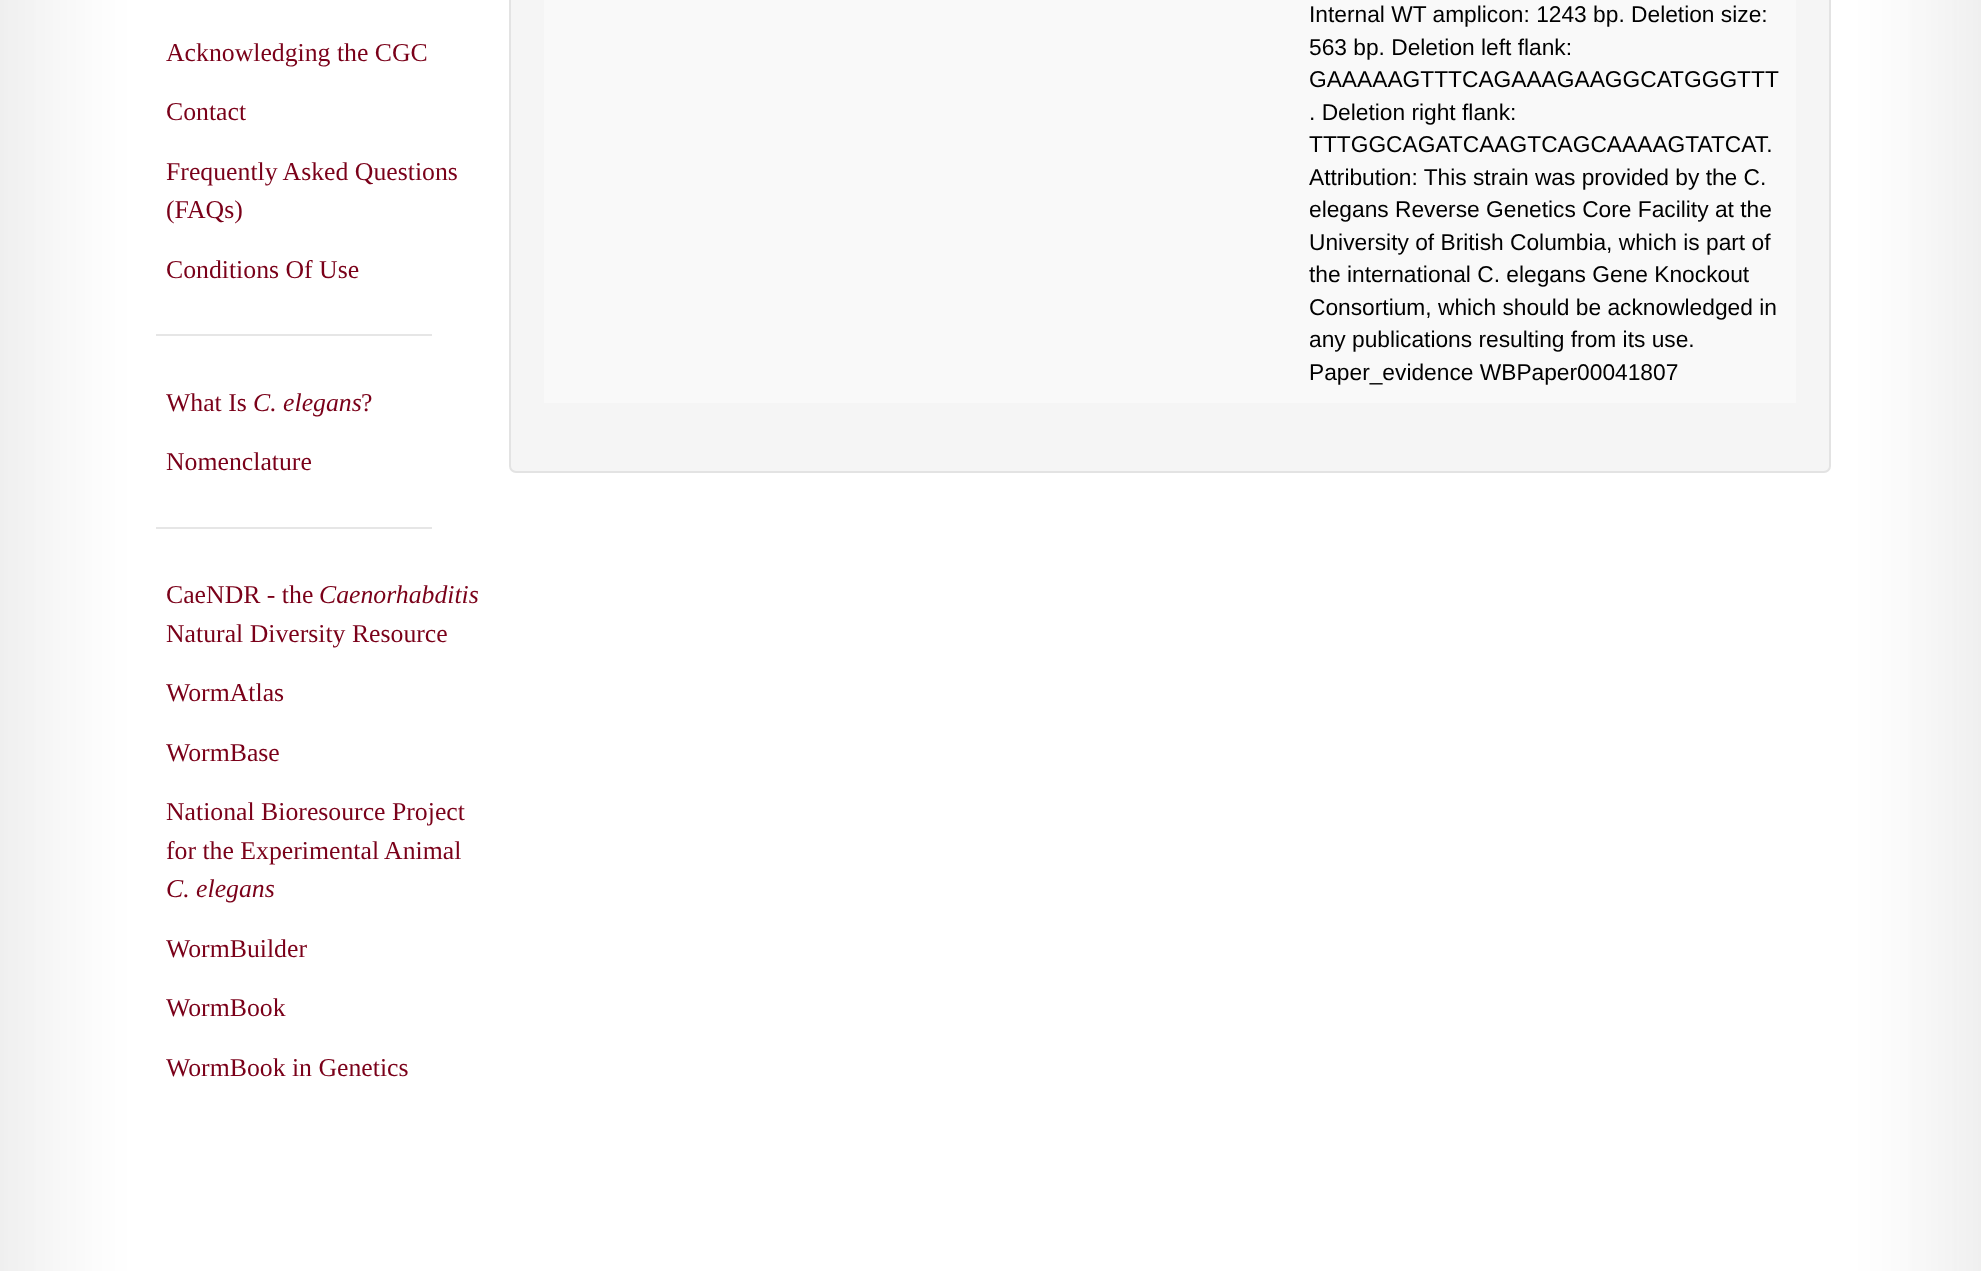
(async () => {
  const canvas = document.querySelector("canvas");
  canvas.width = 1981;
  canvas.height = 1271;
  const ctx = canvas.getContext("2d");
  ctx.miterLimit = 4;
  ctx.fontKerning = "normal";
  async function loadImage(src) {
    const img = new Image();
    img.src = src;
    await img.decode();
    return img;
  }

  ctx.fillStyle = "#ffffff";
  ctx.fillRect(0, 0, 1981, 1271);
  ctx.drawImage(await loadImage("img/1.png"), 0, 0, 1981, 1271);
  ctx.fillStyle = "#e6e6e6";
  ctx.fillRect(156, 334, 276, 2);
  ctx.fillRect(156, 527, 276, 2);
  ctx.fillStyle = "#f5f5f5";
  ctx.beginPath();
  ctx.roundRect(510, -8, 1320, 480, 6);
  ctx.fill();
  ctx.strokeStyle = "#e3e3e3";
  ctx.lineWidth = 2;
  ctx.stroke();
  ctx.fillStyle = "#f9f9f9";
  ctx.fillRect(544, 0, 1252, 403);
  ctx.font = "25.75px Liberation Serif";
  ctx.fillStyle = "#7a0019";
  for (const [text, x, y] of [
    ["Acknowledging the CGC", 166, 61],
    ["Contact", 166, 120],
    ["Frequently Asked Questions", 166, 180],
    ["(FAQs)", 166, 218],
    ["Conditions Of Use", 166, 278],
    ["What Is", 166, 411],
  ]) {
    ctx.fillText(text, x, y);
  }
  ctx.font = "italic 25.75px Liberation Serif";
  ctx.fillText("C. elegans", 253, 411);
  ctx.font = "25.75px Liberation Serif";
  for (const [text, x, y] of [
    ["?", 361, 411],
    ["Nomenclature", 166, 470],
    ["CaeNDR - the", 166, 603],
  ]) {
    ctx.fillText(text, x, y);
  }
  ctx.font = "italic 25.75px Liberation Serif";
  ctx.fillText("Caenorhabditis", 319, 603);
  ctx.font = "25.75px Liberation Serif";
  for (const [text, x, y] of [
    ["Natural Diversity Resource", 166, 642],
    ["WormAtlas", 166, 701],
    ["WormBase", 166, 761],
    ["National Bioresource Project", 166, 820],
    ["for the Experimental Animal", 166, 859],
  ]) {
    ctx.fillText(text, x, y);
  }
  ctx.font = "italic 25.75px Liberation Serif";
  ctx.fillText("C. elegans", 166, 897);
  ctx.font = "25.75px Liberation Serif";
  for (const [text, x, y] of [
    ["WormBuilder", 166, 957],
    ["WormBook", 166, 1016],
    ["WormBook in Genetics", 166, 1076],
  ]) {
    ctx.fillText(text, x, y);
  }
  ctx.font = "22.75px Liberation Sans";
  ctx.fillStyle = "#000000";
  for (const [text, x, y] of [
    ["Internal WT amplicon: 1243 bp. Deletion size:", 1309, 22],
    ["563 bp. Deletion left flank:", 1309, 55],
    ["GAAAAAGTTTCAGAAAGAAGGCATGGGTTT", 1309, 87],
    [". Deletion right flank:", 1309, 120],
    ["TTTGGCAGATCAAGTCAGCAAAAGTATCAT.", 1309, 152],
    ["Attribution: This strain was provided by the C.", 1309, 185],
    ["elegans Reverse Genetics Core Facility at the", 1309, 217],
    ["University of British Columbia, which is part of", 1309, 250],
    ["the international C. elegans Gene Knockout", 1309, 282],
    ["Consortium, which should be acknowledged in", 1309, 315],
    ["any publications resulting from its use.", 1309, 347],
    ["Paper_evidence WBPaper00041807", 1309, 380],
  ]) {
    ctx.fillText(text, x, y);
  }
})();
